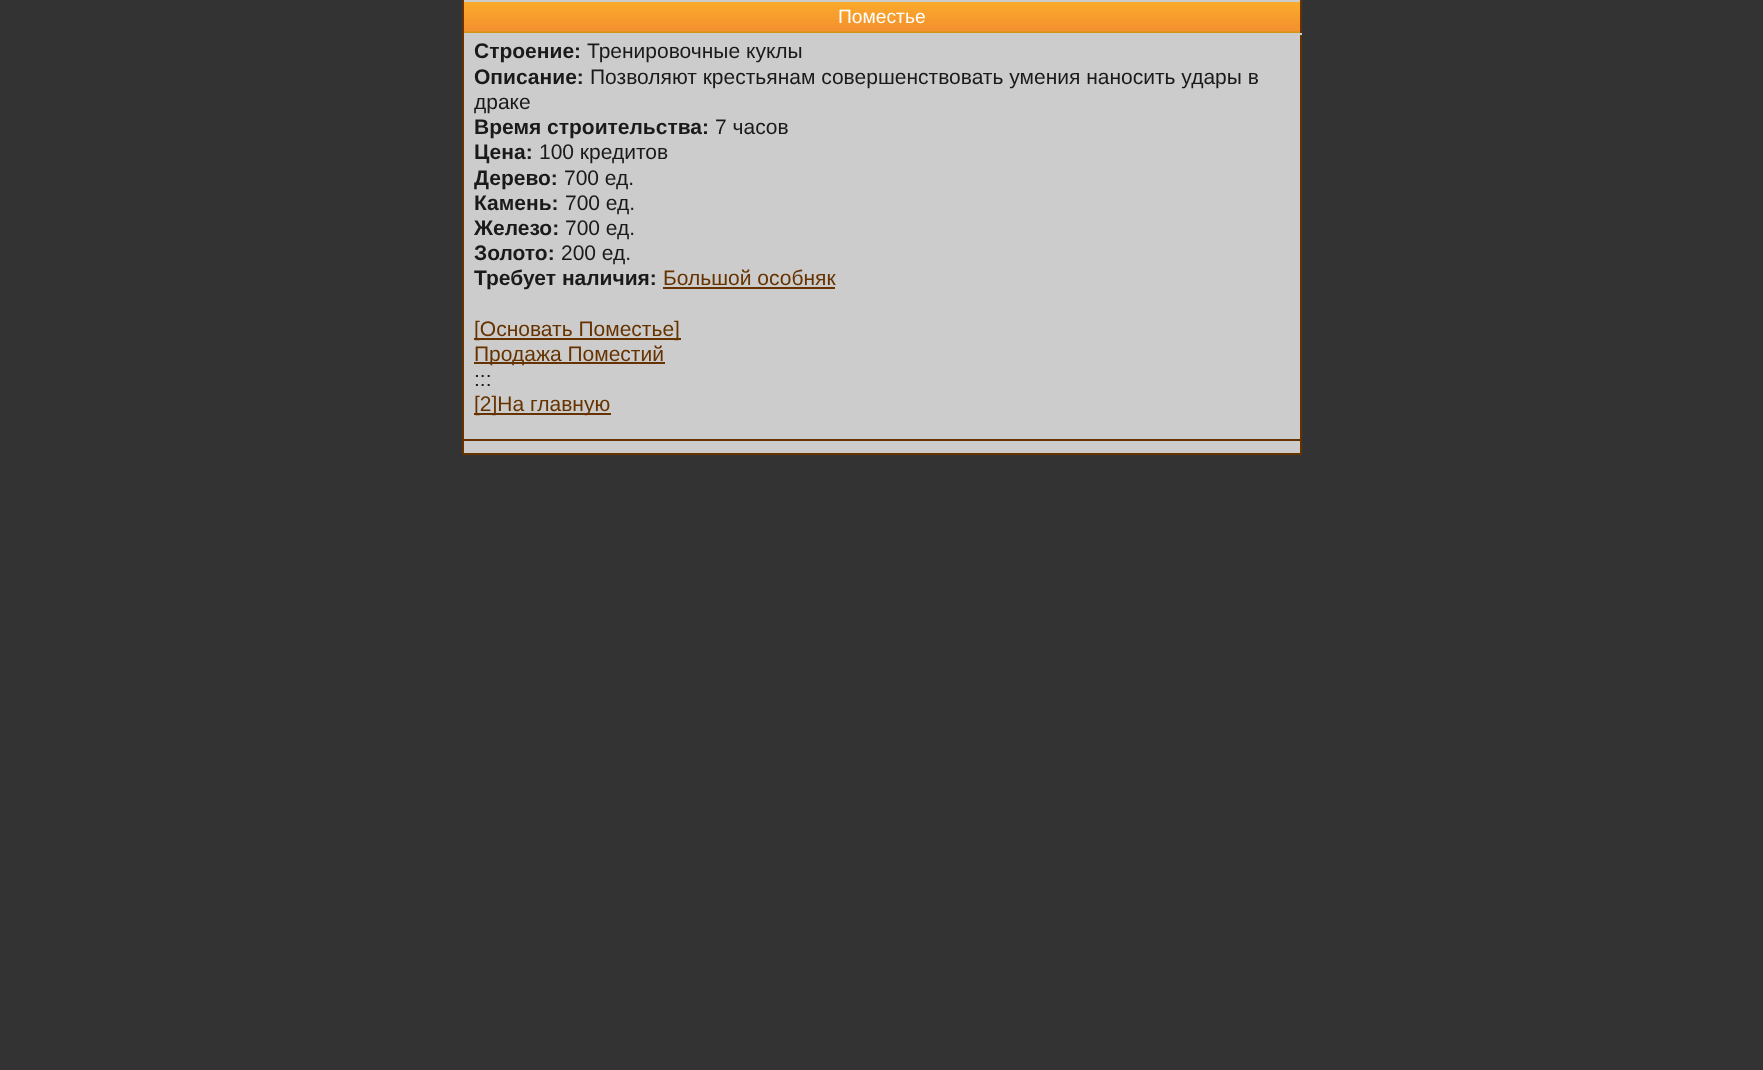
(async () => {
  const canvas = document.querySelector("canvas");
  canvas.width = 1763;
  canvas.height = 1070;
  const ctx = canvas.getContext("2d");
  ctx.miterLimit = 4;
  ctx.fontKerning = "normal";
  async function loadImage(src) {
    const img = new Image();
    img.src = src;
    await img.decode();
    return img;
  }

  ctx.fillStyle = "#333333";
  ctx.fillRect(0, 0, 1763, 1070);
  ctx.fillStyle = "#d29513";
  ctx.fillRect(464, 31, 836, 2);
  ctx.drawImage(await loadImage("img/1.png"), 464, 2, 836, 30);
  for (const [x, y, w, h, color] of [
    [462, 0, 840, 2, "#cccccc"],
    [1300, 0, 2, 455, "#663300"],
    [462, 33, 840, 2, "#cccccc"],
    [462, 0, 2, 427, "#663300"],
    [464, 35, 836, 404, "#cccccc"],
    [663, 287, 172, 2, "#663300"],
    [474, 338, 207, 2, "#663300"],
    [474, 362, 191, 2, "#663300"],
    [474, 413, 137, 2, "#663300"],
    [462, 439, 840, 2, "#663300"],
    [462, 427, 2, 14, "#663300"],
    [464, 441, 836, 12, "#cccccc"],
    [462, 453, 840, 2, "#663300"],
    [462, 441, 2, 14, "#663300"],
  ]) {
    ctx.fillStyle = color;
    ctx.fillRect(x, y, w, h);
  }
  ctx.font = "19.25px Liberation Sans";
  ctx.fillStyle = "#ffffff";
  ctx.fillText("Поместье", 838, 23);
  ctx.font = "bold 21px Liberation Sans";
  ctx.fillStyle = "#1a1a1a";
  ctx.fillText("Строение:", 474, 58);
  ctx.font = "21px Liberation Sans";
  ctx.fillText("Тренировочные куклы", 587, 58);
  ctx.font = "bold 21px Liberation Sans";
  ctx.fillText("Описание:", 474, 84);
  ctx.font = "21px Liberation Sans";
  ctx.fillText("Позволяют крестьянам совершенствовать умения наносить удары в", 590, 84);
  ctx.fillText("драке", 474, 109);
  ctx.font = "bold 21px Liberation Sans";
  ctx.fillText("Время строительства:", 474, 134);
  ctx.font = "21px Liberation Sans";
  ctx.fillText("7 часов", 715, 134);
  ctx.font = "bold 21px Liberation Sans";
  ctx.fillText("Цена:", 474, 159);
  ctx.font = "21px Liberation Sans";
  ctx.fillText("100 кредитов", 539, 159);
  ctx.font = "bold 21px Liberation Sans";
  ctx.fillText("Дерево:", 474, 185);
  ctx.font = "21px Liberation Sans";
  ctx.fillText("700 ед.", 564, 185);
  ctx.font = "bold 21px Liberation Sans";
  ctx.fillText("Камень:", 474, 210);
  ctx.font = "21px Liberation Sans";
  ctx.fillText("700 ед.", 565, 210);
  ctx.font = "bold 21px Liberation Sans";
  ctx.fillText("Железо:", 474, 235);
  ctx.font = "21px Liberation Sans";
  ctx.fillText("700 ед.", 565, 235);
  ctx.font = "bold 21px Liberation Sans";
  ctx.fillText("Золото:", 474, 260);
  ctx.font = "21px Liberation Sans";
  ctx.fillText("200 ед.", 561, 260);
  ctx.font = "bold 21px Liberation Sans";
  ctx.fillText("Требует наличия:", 474, 285);
  ctx.font = "21px Liberation Sans";
  ctx.fillStyle = "#663300";
  for (const [text, x, y] of [
    ["Большой особняк", 663, 285],
    ["[Основать Поместье]", 474, 336],
    ["Продажа Поместий", 474, 361],
  ]) {
    ctx.fillText(text, x, y);
  }
  ctx.fillStyle = "#1a1a1a";
  ctx.fillText(":::", 474, 386);
  ctx.fillStyle = "#663300";
  ctx.fillText("[2]На главную", 474, 411);
})();
